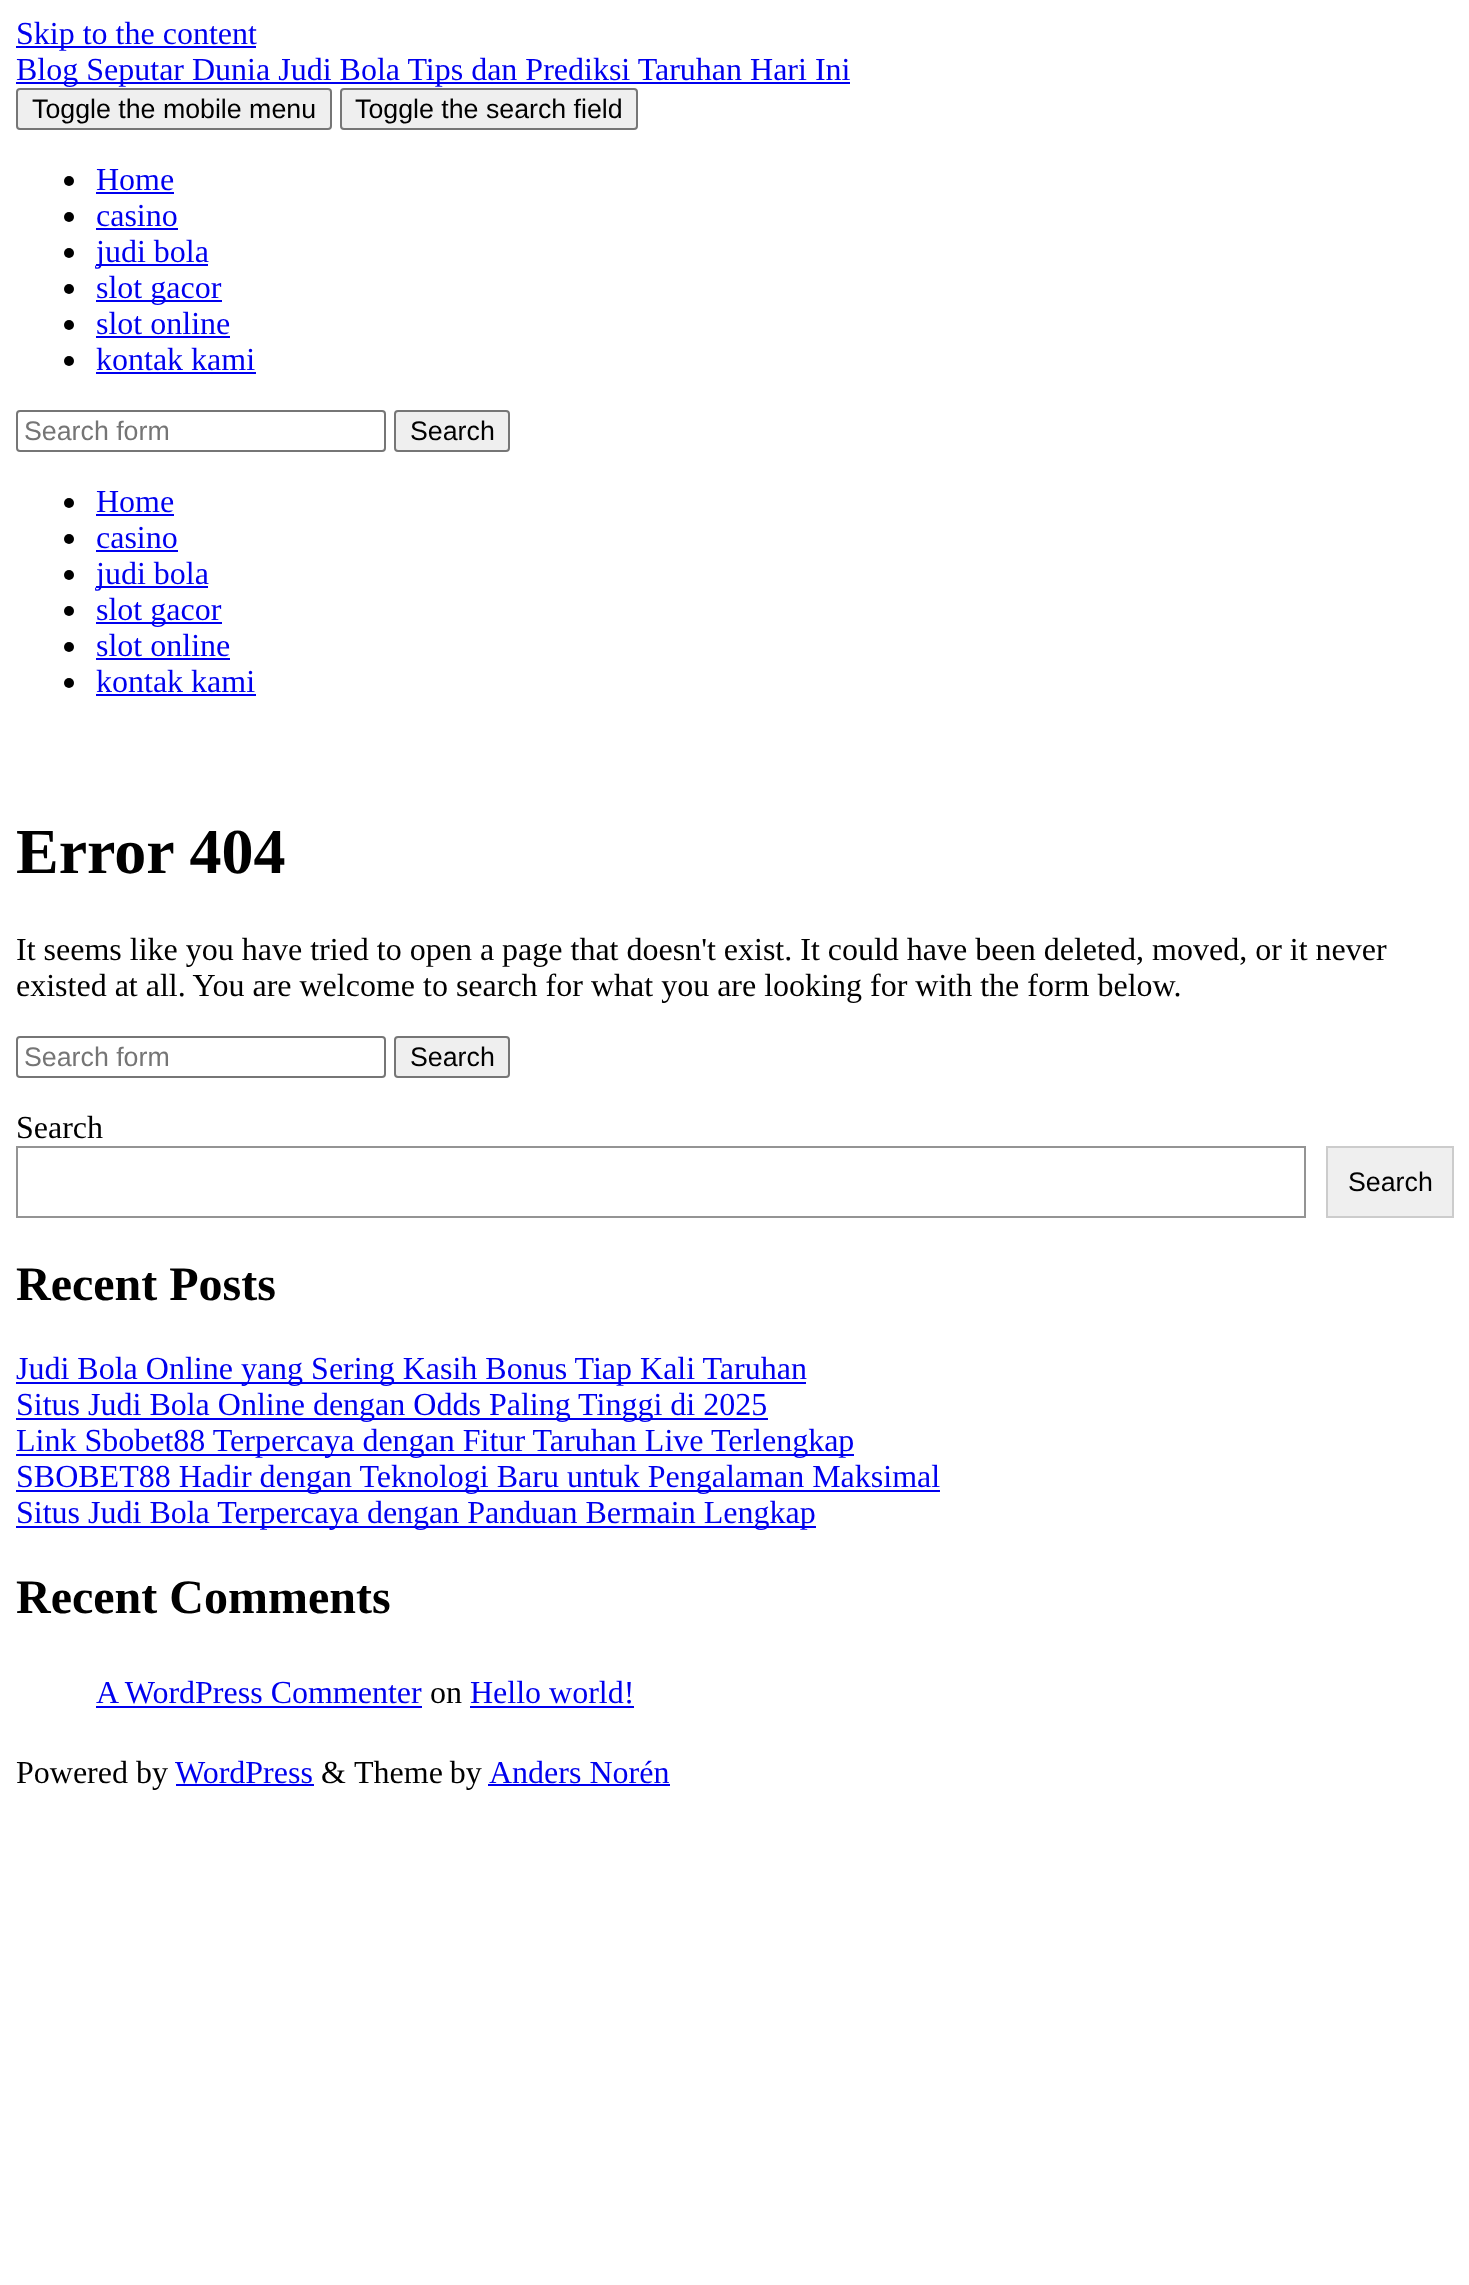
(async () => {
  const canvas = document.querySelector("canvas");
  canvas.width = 1469;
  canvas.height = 2285;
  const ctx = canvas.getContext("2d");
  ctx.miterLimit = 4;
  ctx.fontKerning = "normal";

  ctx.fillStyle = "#ffffff";
  ctx.fillRect(0, 0, 1469, 2285);
  ctx.fillStyle = "#0000ee";
  ctx.fillRect(16, 46, 240, 2);
  ctx.fillRect(16, 82, 834, 2);
  ctx.fillStyle = "#efefef";
  ctx.beginPath();
  ctx.roundRect(17, 89, 314, 40, 3);
  ctx.fill();
  ctx.strokeStyle = "#767676";
  ctx.lineWidth = 2;
  ctx.stroke();
  ctx.beginPath();
  ctx.roundRect(341, 89, 296, 40, 3);
  ctx.fill();
  ctx.stroke();
  ctx.fillStyle = "#000000";
  ctx.beginPath();
  ctx.arc(69, 181, 5, 0, Math.PI * 2);
  ctx.fill();
  ctx.fillStyle = "#0000ee";
  ctx.fillRect(96, 192, 78, 2);
  ctx.fillStyle = "#000000";
  ctx.beginPath();
  ctx.arc(69, 217, 5, 0, Math.PI * 2);
  ctx.fill();
  ctx.fillStyle = "#0000ee";
  ctx.fillRect(96, 228, 82, 2);
  ctx.fillStyle = "#000000";
  ctx.beginPath();
  ctx.arc(69, 253, 5, 0, Math.PI * 2);
  ctx.fill();
  ctx.fillStyle = "#0000ee";
  ctx.fillRect(96, 264, 112, 2);
  ctx.fillStyle = "#000000";
  ctx.beginPath();
  ctx.arc(69, 289, 5, 0, Math.PI * 2);
  ctx.fill();
  ctx.fillStyle = "#0000ee";
  ctx.fillRect(96, 300, 126, 2);
  ctx.fillStyle = "#000000";
  ctx.beginPath();
  ctx.arc(69, 325, 5, 0, Math.PI * 2);
  ctx.fill();
  ctx.fillStyle = "#0000ee";
  ctx.fillRect(96, 336, 134, 2);
  ctx.fillStyle = "#000000";
  ctx.beginPath();
  ctx.arc(69, 361, 5, 0, Math.PI * 2);
  ctx.fill();
  ctx.fillStyle = "#0000ee";
  ctx.fillRect(96, 372, 160, 2);
  ctx.beginPath();
  ctx.roundRect(17, 411, 368, 40, 3);
  ctx.stroke();
  ctx.fillStyle = "#efefef";
  ctx.beginPath();
  ctx.roundRect(395, 411, 114, 40, 3);
  ctx.fill();
  ctx.stroke();
  ctx.fillStyle = "#000000";
  ctx.beginPath();
  ctx.arc(69, 503, 5, 0, Math.PI * 2);
  ctx.fill();
  ctx.fillStyle = "#0000ee";
  ctx.fillRect(96, 514, 78, 2);
  ctx.fillStyle = "#000000";
  ctx.beginPath();
  ctx.arc(69, 539, 5, 0, Math.PI * 2);
  ctx.fill();
  ctx.fillStyle = "#0000ee";
  ctx.fillRect(96, 550, 82, 2);
  ctx.fillStyle = "#000000";
  ctx.beginPath();
  ctx.arc(69, 575, 5, 0, Math.PI * 2);
  ctx.fill();
  ctx.fillStyle = "#0000ee";
  ctx.fillRect(96, 586, 112, 2);
  ctx.fillStyle = "#000000";
  ctx.beginPath();
  ctx.arc(69, 611, 5, 0, Math.PI * 2);
  ctx.fill();
  ctx.fillStyle = "#0000ee";
  ctx.fillRect(96, 622, 126, 2);
  ctx.fillStyle = "#000000";
  ctx.beginPath();
  ctx.arc(69, 647, 5, 0, Math.PI * 2);
  ctx.fill();
  ctx.fillStyle = "#0000ee";
  ctx.fillRect(96, 658, 134, 2);
  ctx.fillStyle = "#000000";
  ctx.beginPath();
  ctx.arc(69, 683, 5, 0, Math.PI * 2);
  ctx.fill();
  ctx.fillStyle = "#0000ee";
  ctx.fillRect(96, 694, 160, 2);
  ctx.beginPath();
  ctx.roundRect(17, 1037, 368, 40, 3);
  ctx.stroke();
  ctx.fillStyle = "#efefef";
  ctx.beginPath();
  ctx.roundRect(395, 1037, 114, 40, 3);
  ctx.fill();
  ctx.stroke();
  ctx.strokeStyle = "#949494";
  ctx.strokeRect(17, 1147, 1288, 70);
  ctx.beginPath();
  ctx.rect(1327, 1147, 126, 70);
  ctx.fill();
  ctx.strokeStyle = "#cccccc";
  ctx.stroke();
  for (const [x, y, w, h, color] of [
    [16, 1382, 790, 2, "#0000ee"],
    [16, 1418, 752, 2, "#0000ee"],
    [16, 1454, 838, 2, "#0000ee"],
    [16, 1490, 924, 2, "#0000ee"],
    [16, 1526, 800, 2, "#0000ee"],
    [96, 1706, 326, 2, "#0000ee"],
    [470, 1706, 164, 2, "#0000ee"],
    [176, 1784, 138, 2, "#0000ee"],
    [488, 1784, 182, 2, "#0000ee"],
  ]) {
    ctx.fillStyle = color;
    ctx.fillRect(x, y, w, h);
  }
  ctx.font = "32px Liberation Serif";
  ctx.fillText("Skip to the content", 16, 44);
  ctx.fillText("Blog Seputar Dunia Judi Bola Tips dan Prediksi Taruhan Hari Ini", 16, 80);
  ctx.font = "26.75px Liberation Sans";
  ctx.fillStyle = "#000000";
  ctx.fillText("Toggle the mobile menu", 32, 118);
  ctx.fillText("Toggle the search field", 355, 118);
  ctx.font = "32px Liberation Serif";
  ctx.fillStyle = "#0000ee";
  for (const [text, x, y] of [
    ["Home", 96, 190],
    ["casino", 96, 226],
    ["judi bola", 96, 262],
    ["slot gacor", 96, 298],
    ["slot online", 96, 334],
    ["kontak kami", 96, 370],
  ]) {
    ctx.fillText(text, x, y);
  }
  ctx.font = "26.75px Liberation Sans";
  ctx.fillStyle = "#757575";
  ctx.fillText("Search form", 24, 440);
  ctx.fillStyle = "#000000";
  ctx.fillText("Search", 410, 440);
  ctx.font = "32px Liberation Serif";
  ctx.fillStyle = "#0000ee";
  for (const [text, x, y] of [
    ["Home", 96, 512],
    ["casino", 96, 548],
    ["judi bola", 96, 584],
    ["slot gacor", 96, 620],
    ["slot online", 96, 656],
    ["kontak kami", 96, 692],
  ]) {
    ctx.fillText(text, x, y);
  }
  ctx.font = "bold 64px Liberation Serif";
  ctx.fillStyle = "#000000";
  ctx.fillText("Error 404", 16, 873);
  ctx.font = "32px Liberation Serif";
  ctx.fillText("It seems like you have tried to open a page that doesn't exist. It could have been deleted, moved, or it never", 16, 960);
  ctx.fillText("existed at all. You are welcome to search for what you are looking for with the form below.", 16, 996);
  ctx.font = "26.75px Liberation Sans";
  ctx.fillStyle = "#757575";
  ctx.fillText("Search form", 24, 1066);
  ctx.fillStyle = "#000000";
  ctx.fillText("Search", 410, 1066);
  ctx.font = "32px Liberation Serif";
  ctx.fillText("Search", 16, 1138);
  ctx.font = "26.75px Liberation Sans";
  ctx.fillText("Search", 1348, 1191);
  ctx.font = "bold 48px Liberation Serif";
  ctx.fillText("Recent Posts", 16, 1300);
  ctx.font = "32px Liberation Serif";
  ctx.fillStyle = "#0000ee";
  for (const [text, x, y] of [
    ["Judi Bola Online yang Sering Kasih Bonus Tiap Kali Taruhan", 16, 1379],
    ["Situs Judi Bola Online dengan Odds Paling Tinggi di 2025", 16, 1415],
    ["Link Sbobet88 Terpercaya dengan Fitur Taruhan Live Terlengkap", 16, 1451],
    ["SBOBET88 Hadir dengan Teknologi Baru untuk Pengalaman Maksimal", 16, 1487],
    ["Situs Judi Bola Terpercaya dengan Panduan Bermain Lengkap", 16, 1523],
  ]) {
    ctx.fillText(text, x, y);
  }
  ctx.font = "bold 48px Liberation Serif";
  ctx.fillStyle = "#000000";
  ctx.fillText("Recent Comments", 16, 1613);
  ctx.font = "32px Liberation Serif";
  ctx.fillStyle = "#0000ee";
  ctx.fillText("A WordPress Commenter", 96, 1703);
  ctx.fillStyle = "#000000";
  ctx.fillText("on", 430, 1703);
  ctx.fillStyle = "#0000ee";
  ctx.fillText("Hello world!", 470, 1703);
  ctx.fillStyle = "#000000";
  ctx.fillText("Powered by", 16, 1783);
  ctx.fillStyle = "#0000ee";
  ctx.fillText("WordPress", 175, 1783);
  ctx.fillStyle = "#000000";
  ctx.fillText("&", 321, 1783);
  ctx.wordSpacing = "-1px";
  ctx.fillText("Theme by", 354, 1783);
  ctx.wordSpacing = "0px";
  ctx.fillStyle = "#0000ee";
  ctx.fillText("Anders Norén", 489, 1783);
})();
